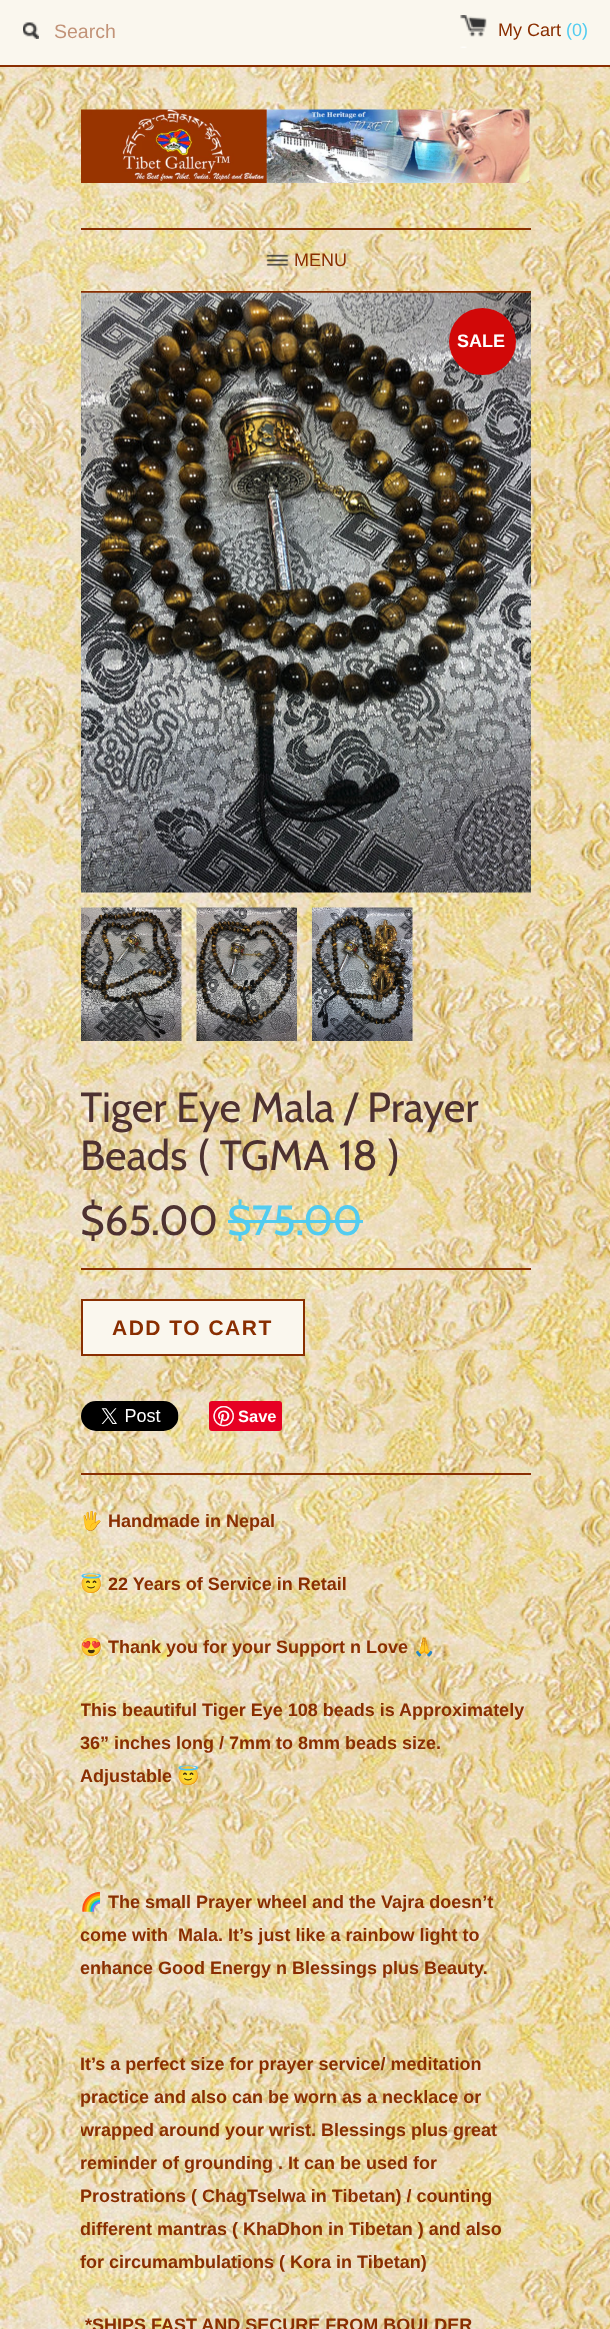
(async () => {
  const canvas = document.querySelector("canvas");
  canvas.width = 610;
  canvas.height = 2329;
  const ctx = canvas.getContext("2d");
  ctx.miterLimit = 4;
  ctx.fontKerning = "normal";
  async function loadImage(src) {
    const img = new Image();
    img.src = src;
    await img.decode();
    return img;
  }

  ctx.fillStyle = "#ffffff";
  ctx.fillRect(0, 0, 610, 2329);
  ctx.drawImage(await loadImage("img/1.png"), 0, 67, 610, 2262);
  ctx.fillStyle = "#faf7ee";
  ctx.fillRect(0, 0, 610, 65);
  ctx.fillStyle = "#892e01";
  ctx.fillRect(0, 65, 610, 2);
  ctx.drawImage(await loadImage("img/2.png"), 23, 22, 16, 17);
  ctx.drawImage(await loadImage("img/3.png"), 460, 15, 27, 33);
  ctx.drawImage(await loadImage("img/4.png"), 81, 109, 449, 74);
  ctx.fillRect(81, 228, 450, 2);
  ctx.drawImage(await loadImage("img/5.png"), 266, 254, 23, 12);
  ctx.fillRect(81, 291, 450, 2);
  ctx.drawImage(await loadImage("img/6.png"), 81, 292, 450, 601);
  ctx.fillStyle = "#d10808";
  ctx.beginPath();
  ctx.arc(482.5, 341.5, 33.5, 0, Math.PI * 2);
  ctx.fill();
  ctx.drawImage(await loadImage("img/7.png"), 81, 907, 101, 134);
  ctx.drawImage(await loadImage("img/8.png"), 196, 907, 101, 134);
  ctx.drawImage(await loadImage("img/9.png"), 312, 907, 101, 134);
  ctx.fillStyle = "#52ccf0";
  ctx.fillRect(228, 1220, 135, 3);
  ctx.fillStyle = "#892e01";
  ctx.fillRect(81, 1268, 450, 2);
  ctx.fillStyle = "#faf7ee";
  ctx.beginPath();
  ctx.rect(82, 1300, 222, 55);
  ctx.fill();
  ctx.strokeStyle = "#892e01";
  ctx.lineWidth = 2;
  ctx.stroke();
  ctx.drawImage(await loadImage("img/10.png"), 81, 1401, 98, 30);
  ctx.fillStyle = "#e60023";
  ctx.beginPath();
  ctx.roundRect(209, 1401, 73, 30, 3);
  ctx.fill();
  ctx.drawImage(await loadImage("img/11.png"), 213, 1406, 21, 21);
  ctx.fillStyle = "#892e01";
  ctx.fillRect(81, 1473, 450, 2);
  ctx.font = "19.5px Liberation Sans";
  ctx.fillStyle = "#c29378";
  ctx.fillText("Search", 54, 38);
  ctx.font = "18px Liberation Sans";
  ctx.fillStyle = "#892e01";
  ctx.fillText("My Cart", 498, 36);
  ctx.fillStyle = "#52ccf0";
  ctx.fillText("(0)", 566, 36);
  ctx.fillStyle = "#892e01";
  ctx.fillText("MENU", 294, 266);
  ctx.font = "bold 18px Liberation Sans";
  ctx.fillStyle = "#ffffff";
  ctx.fillText("SALE", 457, 347);
  ctx.save();
  ctx.beginPath();
  ctx.rect(81, 293, 450, 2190);
  ctx.clip();
  ctx.font = "42px Cabin";
  ctx.fillStyle = "#4d3131";
  ctx.fillText("Tiger Eye Mala / Prayer", 80, 1122);
  ctx.restore();
  ctx.font = "42px Cabin";
  ctx.fillStyle = "#4d3131";
  ctx.fillText("Beads ( TGMA 18 )", 80, 1170);
  ctx.fillText("$65.00", 80, 1235);
  ctx.fillStyle = "#52ccf0";
  ctx.fillText("$75.00", 227, 1235);
  ctx.letterSpacing = "1.5px";
  ctx.font = "bold 21px Liberation Sans";
  ctx.fillStyle = "#892e01";
  ctx.fillText("ADD TO CART", 112, 1335);
  ctx.letterSpacing = "0px";
  ctx.font = "bold 16.5px Liberation Sans";
  ctx.fillStyle = "#ffffff";
  ctx.fillText("Save", 238, 1422);
  ctx.save();
  ctx.beginPath();
  ctx.rect(81, 293, 450, 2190);
  ctx.clip();
  ctx.font = "bold 18px Noto Color Emoji";
  ctx.fillStyle = "#892e01";
  ctx.fillText("🖐", 80, 1527);
  ctx.restore();
  ctx.font = "bold 18px Liberation Sans";
  ctx.fillStyle = "#892e01";
  ctx.fillText("Handmade in Nepal", 108, 1527);
  ctx.save();
  ctx.beginPath();
  ctx.rect(81, 293, 450, 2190);
  ctx.clip();
  ctx.font = "bold 18px Noto Color Emoji";
  ctx.fillText("😇", 80, 1590);
  ctx.restore();
  ctx.fillText("22 Years of Service in Retail", 108, 1590);
  ctx.save();
  ctx.beginPath();
  ctx.rect(81, 293, 450, 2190);
  ctx.clip();
  ctx.font = "18px Noto Color Emoji";
  ctx.fillText("😍", 80, 1653);
  ctx.restore();
  ctx.fillText("Thank you for your Support n Love", 108, 1653);
  ctx.font = "bold 18px Noto Color Emoji";
  ctx.fillText("🙏", 413, 1653);
  ctx.save();
  ctx.beginPath();
  ctx.rect(81, 293, 450, 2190);
  ctx.clip();
  ctx.font = "bold 18px Liberation Sans";
  ctx.fillText("This beautiful Tiger Eye 108 beads is Approximately", 80, 1716);
  ctx.restore();
  ctx.font = "bold 18px Liberation Sans";
  ctx.fillText("36” inches long / 7mm to 8mm beads size.", 80, 1749);
  ctx.fillText("Adjustable", 80, 1782);
  ctx.font = "bold 18px Noto Color Emoji";
  ctx.fillText("😇", 177, 1782);
  ctx.save();
  ctx.beginPath();
  ctx.rect(81, 293, 450, 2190);
  ctx.clip();
  ctx.fillText("🌈", 80, 1908);
  ctx.restore();
  ctx.font = "bold 18px Liberation Sans";
  for (const [text, x, y] of [
    ["The small Prayer wheel and the Vajra doesn’t", 108, 1908],
    ["come with  Mala. It’s just like a rainbow light to", 80, 1941],
    ["enhance Good Energy n Blessings plus Beauty.", 80, 1974],
    ["It’s a perfect size for prayer service/ meditation", 80, 2070],
    ["practice and also can be worn as a necklace or", 80, 2103],
  ]) {
    ctx.fillText(text, x, y);
  }
  ctx.save();
  ctx.beginPath();
  ctx.rect(81, 293, 450, 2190);
  ctx.clip();
  ctx.fillText("wrapped around your wrist. Blessings plus great", 80, 2136);
  ctx.restore();
  for (const [text, x, y] of [
    ["reminder of grounding . It can be used for", 80, 2169],
    ["Prostrations ( ChagTselwa in Tibetan) / counting", 80, 2202],
    ["different mantras ( KhaDhon in Tibetan ) and also", 80, 2235],
    ["for circumambulations ( Kora in Tibetan)", 80, 2268],
    ["*SHIPS FAST AND SECURE FROM BOULDER", 85, 2331],
  ]) {
    ctx.fillText(text, x, y);
  }
})();
